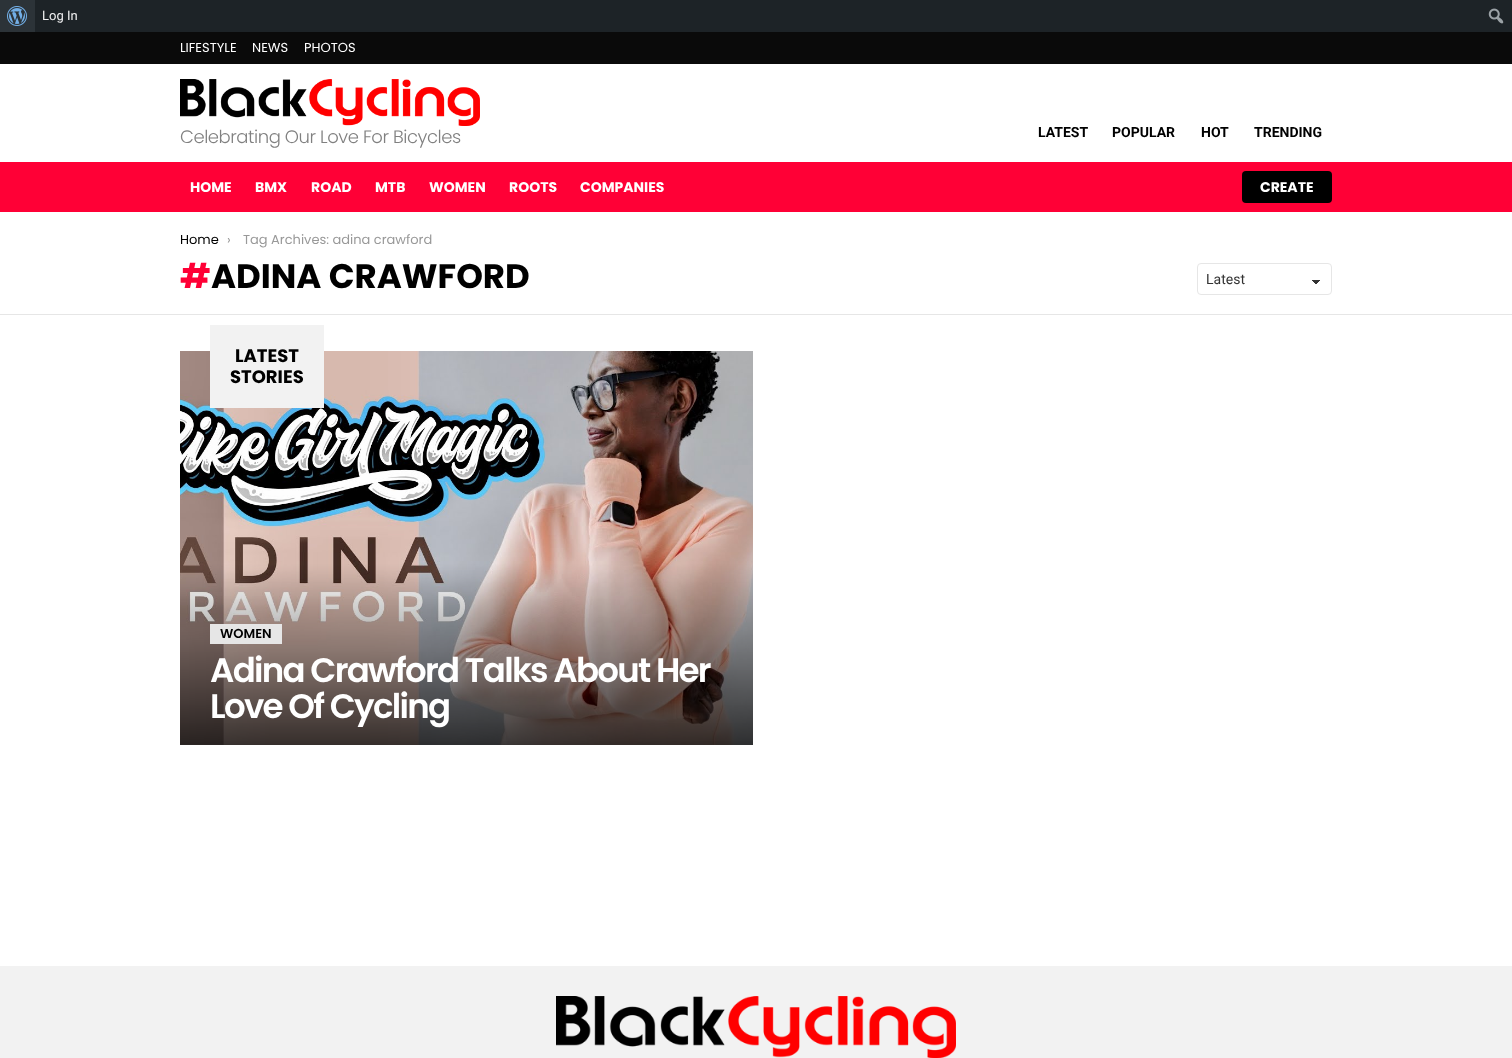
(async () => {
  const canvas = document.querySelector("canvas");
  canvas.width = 1512;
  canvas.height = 1058;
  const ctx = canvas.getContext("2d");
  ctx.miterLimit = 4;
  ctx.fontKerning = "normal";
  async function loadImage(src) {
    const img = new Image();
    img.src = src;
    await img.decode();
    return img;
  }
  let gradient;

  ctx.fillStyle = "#ffffff";
  ctx.fillRect(0, 0, 1512, 1058);
  ctx.fillStyle = "#1d2327";
  ctx.fillRect(35, 0, 1477, 32);
  ctx.fillStyle = "#2c3338";
  ctx.fillRect(0, 0, 35, 32);
  ctx.drawImage(await loadImage("img/1.png"), 7, 6, 20, 20);
  ctx.drawImage(await loadImage("img/2.png"), 1488, 8, 16, 16);
  ctx.fillStyle = "#0a0a0a";
  ctx.fillRect(0, 32, 1512, 32);
  ctx.drawImage(await loadImage("img/3.png"), 180, 79, 300, 47);
  ctx.fillStyle = "#ff0036";
  ctx.fillRect(0, 162, 1512, 50);
  ctx.fillStyle = "#000000";
  ctx.beginPath();
  ctx.roundRect(1242, 171, 90, 32, 4);
  ctx.fill();
  gradient = ctx.createLinearGradient(1316, 280, 1321, 284);
  gradient.addColorStop(0.5, "#333333");
  gradient.addColorStop(0.5, "#ffffff");
  ctx.fillStyle = gradient;
  ctx.fillRect(1316, 280, 5, 4);
  gradient = ctx.createLinearGradient(1311, 284, 1316, 280);
  gradient.addColorStop(0.5, "#ffffff");
  gradient.addColorStop(0.5, "#333333");
  ctx.fillStyle = gradient;
  ctx.fillRect(1311, 280, 5, 4);
  ctx.beginPath();
  ctx.roundRect(1197.5, 263.5, 134, 31, 3.5);
  ctx.strokeStyle = "#e6e6e6";
  ctx.stroke();
  ctx.fillStyle = "#e6e6e6";
  ctx.fillRect(0, 314, 1512, 1);
  ctx.drawImage(await loadImage("img/4.png"), 180, 351, 573, 394);
  for (const [x, y, w, h, color] of [
    [210, 325, 114, 83, "#f2f2f2"],
    [210, 624, 72, 20, "#e6e6e6"],
    [0, 966, 1512, 92, "#f2f2f2"],
  ]) {
    ctx.fillStyle = color;
    ctx.fillRect(x, y, w, h);
  }
  ctx.drawImage(await loadImage("img/5.png"), 556, 996, 400, 62);
  ctx.font = "13px Roboto";
  ctx.fillStyle = "#f0f0f1";
  ctx.fillText("Log In", 42, 20);
  ctx.font = "13px Poppins";
  ctx.fillStyle = "#ffffff";
  for (const [text, x, y] of [
    ["LIFESTYLE", 180, 52],
    ["NEWS", 252, 52],
    ["PHOTOS", 304, 52],
  ]) {
    ctx.fillText(text, x, y);
  }
  ctx.letterSpacing = "-0.45px";
  ctx.font = "300 18px Poppins";
  ctx.fillStyle = "#808080";
  ctx.fillText("Celebrating Our Love For Bicycles", 180, 143);
  ctx.letterSpacing = "0px";
  ctx.font = "bold 14px Roboto";
  ctx.fillStyle = "#000000";
  for (const [text, x, y] of [
    ["LATEST", 1038, 137],
    ["POPULAR", 1112, 137],
    ["HOT", 1201, 137],
    ["TRENDING", 1254, 137],
  ]) {
    ctx.fillText(text, x, y);
  }
  ctx.font = "bold 14px Poppins";
  ctx.fillStyle = "#ffffff";
  for (const [text, x, y] of [
    ["HOME", 190, 192],
    ["BMX", 255, 192],
    ["ROAD", 311, 192],
    ["MTB", 375, 192],
    ["WOMEN", 429, 192],
    ["ROOTS", 509, 192],
    ["COMPANIES", 580, 192],
    ["CREATE", 1260, 192],
  ]) {
    ctx.fillText(text, x, y);
  }
  ctx.font = "13px Poppins";
  ctx.fillStyle = "#000000";
  ctx.fillText("Home", 180, 244);
  ctx.fillStyle = "#999999";
  ctx.fillText("›", 227, 244);
  ctx.fillText("Tag Archives: adina crawford", 243, 244);
  ctx.font = "bold 34px Poppins";
  ctx.fillStyle = "#ff0036";
  ctx.fillText("#", 180, 288);
  ctx.fillStyle = "#000000";
  ctx.fillText("ADINA CRAWFORD", 211, 288);
  ctx.font = "14px Roboto";
  ctx.fillStyle = "#333333";
  ctx.fillText("Latest", 1206, 284);
  ctx.font = "bold 18px Poppins";
  ctx.fillStyle = "#000000";
  ctx.fillText("LATEST", 235, 362);
  ctx.fillText("STORIES", 230, 383);
  ctx.font = "600 13px Poppins";
  ctx.fillText("WOMEN", 220, 638);
  ctx.letterSpacing = "-1.7px";
  ctx.font = "600 34px Poppins";
  ctx.fillStyle = "#ffffff";
  ctx.fillText("Adina Crawford Talks About Her", 210, 682);
  ctx.fillText("Love Of Cycling", 210, 718);
})();
